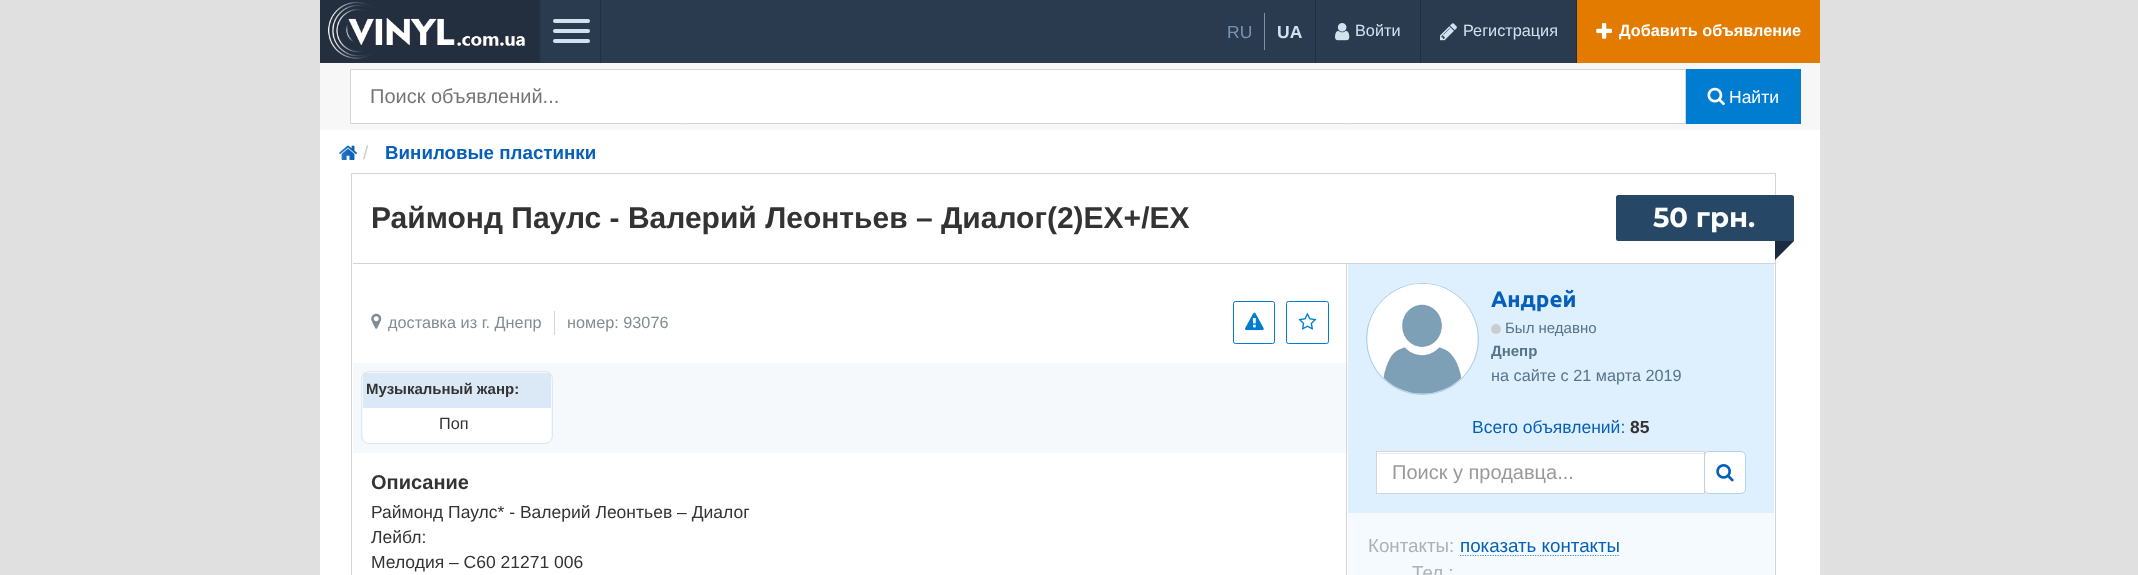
(async () => {
  const canvas = document.querySelector("canvas");
  canvas.width = 2138;
  canvas.height = 575;
  const ctx = canvas.getContext("2d");
  ctx.miterLimit = 4;
  ctx.fontKerning = "normal";
  async function loadImage(src) {
    const img = new Image();
    img.src = src;
    await img.decode();
    return img;
  }
  let path;

  ctx.fillStyle = "#e0e0e0";
  ctx.fillRect(0, 0, 2138, 575);
  ctx.fillStyle = "#ffffff";
  ctx.fillRect(320, 130, 1500, 445);
  ctx.fillStyle = "#2a3b50";
  ctx.fillRect(320, 0, 1256, 63);
  ctx.drawImage(await loadImage("img/1.png"), 320, 0, 219, 63);
  ctx.fillStyle = "#232f3e";
  ctx.fillRect(600, 0, 1, 63);
  ctx.fillRect(539, 0, 1, 63);
  ctx.fillStyle = "#d1e2ef";
  ctx.beginPath();
  ctx.roundRect(553, 19, 37, 4, 2);
  ctx.fill();
  ctx.beginPath();
  ctx.roundRect(553, 29, 37, 4, 2);
  ctx.fill();
  ctx.beginPath();
  ctx.roundRect(553, 39, 37, 4, 2);
  ctx.fill();
  ctx.fillStyle = "#7992b1";
  ctx.fillRect(1264, 13, 1, 37);
  ctx.fillStyle = "#232f3e";
  ctx.fillRect(1315, 0, 1, 63);
  ctx.drawImage(await loadImage("img/2.png"), 1335, 23, 15, 18);
  ctx.fillRect(1420, 0, 1, 63);
  ctx.drawImage(await loadImage("img/3.png"), 1440, 23, 17, 18);
  ctx.fillStyle = "#e37b00";
  ctx.fillRect(1577, 0, 243, 63);
  ctx.fillStyle = "#232f3e";
  ctx.fillRect(1576, 0, 1, 63);
  ctx.drawImage(await loadImage("img/4.png"), 1596, 23, 16, 16);
  ctx.fillStyle = "#f7f7f7";
  ctx.fillRect(320, 63, 1500, 67);
  ctx.drawImage(await loadImage("img/6.png"), 339, 145, 18, 15);
  ctx.strokeStyle = "#d0d6d9";
  ctx.strokeRect(351.5, 173.5, 1424, 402);
  ctx.save();
  ctx.beginPath();
  ctx.roundRect(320, 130, 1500, 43, 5);
  ctx.clip();
  ctx.fillStyle = "#ffffff";
  ctx.filter = "blur(13px)";
  ctx.beginPath();
  ctx.rect(304, 115, 25, 68);
  ctx.fill();
  ctx.filter = "none";
  ctx.restore();
  ctx.fillStyle = "#ffffff";
  ctx.beginPath();
  ctx.rect(350.5, 69.5, 1335, 54);
  ctx.fill();
  ctx.stroke();
  ctx.fillStyle = "#007dd1";
  ctx.fillRect(1686, 69, 115, 55);
  ctx.drawImage(await loadImage("img/5.png"), 1707, 87, 18, 19);
  ctx.fillStyle = "#d0d6d9";
  ctx.fillRect(353, 263, 1422, 1);
  ctx.fillStyle = "#264766";
  ctx.beginPath();
  ctx.roundRect(1616, 195, 178, 46, [2.5, 2.5, 0, 2.5]);
  ctx.fill();
  ctx.fillStyle = "#1c2c40";
  path = new Path2D("M1775 241H1794L1775 260Z");
  ctx.fill(path);
  ctx.fillStyle = "#d0d6d9";
  ctx.fillRect(554, 311, 1, 24);
  ctx.drawImage(await loadImage("img/7.png"), 371, 313, 11, 16);
  ctx.beginPath();
  ctx.roundRect(1233.5, 301.5, 41, 42, 2);
  ctx.strokeStyle = "#007dd1";
  ctx.stroke();
  ctx.drawImage(await loadImage("img/8.png"), 1245, 312, 19, 19);
  ctx.beginPath();
  ctx.roundRect(1286.5, 301.5, 42, 42, 2);
  ctx.stroke();
  ctx.drawImage(await loadImage("img/9.png"), 1298, 313, 19, 17);
  ctx.fillStyle = "#f6f9fb";
  ctx.fillRect(353, 363, 995, 90);
  ctx.beginPath();
  ctx.roundRect(361.5, 371.5, 191, 72, 7.5);
  ctx.strokeStyle = "#dbe9f6";
  ctx.stroke();
  ctx.fillStyle = "#dbe9f6";
  ctx.fillRect(363, 373, 188, 35);
  ctx.fillStyle = "#ffffff";
  ctx.beginPath();
  ctx.roundRect(363, 408, 188, 35, [0, 0, 8, 8]);
  ctx.fill();
  ctx.fillStyle = "#d0d6d9";
  ctx.fillRect(1346, 264, 1, 311);
  ctx.fillStyle = "#deeffe";
  ctx.fillRect(1348, 264, 426, 249);
  ctx.beginPath();
  ctx.roundRect(1366.5, 283.5, 112, 111, 55.5);
  ctx.strokeStyle = "#a8cfe5";
  ctx.stroke();
  ctx.drawImage(await loadImage("img/10.png"), 1367, 283, 111, 111);
  ctx.fillStyle = "#cccccc";
  ctx.beginPath();
  ctx.arc(1496, 329, 5, 0, Math.PI * 2);
  ctx.fill();
  ctx.fillStyle = "#ffffff";
  ctx.fillRect(1377, 452, 327, 41);
  ctx.fillStyle = "#ececec";
  ctx.fillRect(1378, 453, 326, 1);
  ctx.strokeStyle = "#d0d6d9";
  ctx.strokeRect(1376.5, 451.5, 328, 42);
  ctx.fillStyle = "#ffffff";
  ctx.beginPath();
  ctx.roundRect(1704.5, 451.5, 41, 42, 4.5);
  ctx.fill();
  ctx.strokeStyle = "#b6d3e6";
  ctx.stroke();
  ctx.drawImage(await loadImage("img/11.png"), 1716, 464, 18, 18);
  ctx.fillStyle = "#f5faff";
  ctx.fillRect(1348, 513, 426, 62);
  path = new Path2D("M1460 555.5H1620");
  ctx.strokeStyle = "#428bca";
  ctx.lineWidth = 1.2;
  ctx.setLineDash([1.25, 1.25]);
  ctx.stroke(path);
  ctx.font = "17.5px Liberation Sans";
  ctx.fillStyle = "#7992b1";
  ctx.fillText("RU", 1227, 38);
  ctx.font = "bold 17.5px Liberation Sans";
  ctx.fillStyle = "#d1e2ef";
  ctx.fillText("UA", 1277, 38);
  ctx.font = "16.25px Liberation Sans";
  ctx.fillText("Войти", 1355, 36);
  ctx.fillText("Регистрация", 1463, 36);
  ctx.font = "bold 16.25px Liberation Sans";
  ctx.fillStyle = "#ffffff";
  ctx.fillText("Добавить объявление", 1619, 36);
  ctx.font = "20px Liberation Sans";
  ctx.fillStyle = "#757575";
  ctx.fillText("Поиск объявлений...", 370, 103);
  ctx.font = "17.5px Liberation Sans";
  ctx.fillStyle = "#ffffff";
  ctx.fillText("Найти", 1729, 103);
  ctx.font = "18.75px Liberation Sans";
  ctx.fillStyle = "#cccccc";
  ctx.fillText("/", 363, 159);
  ctx.font = "bold 18.75px Liberation Sans";
  ctx.fillStyle = "#065fba";
  ctx.fillText("Виниловые пластинки", 385, 159);
  ctx.font = "bold 30px Liberation Sans";
  ctx.fillStyle = "#333333";
  ctx.fillText("Раймонд Паулс - Валерий Леонтьев – Диалог(2)EX+/EX", 371, 228);
  ctx.font = "bold 27.5px Montserrat";
  ctx.fillStyle = "#ffffff";
  ctx.fillText("50 грн.", 1653, 227);
  ctx.font = "16.25px Liberation Sans";
  ctx.fillStyle = "#828c93";
  ctx.fillText("доставка из г. Днепр", 388, 328);
  ctx.fillText("номер: 93076", 567, 328);
  ctx.font = "bold 15px Liberation Sans";
  ctx.fillStyle = "#333333";
  ctx.fillText("Музыкальный жанр:", 366, 394);
  ctx.font = "16.25px Liberation Sans";
  ctx.fillText("Поп", 439, 429);
  ctx.font = "bold 20px Liberation Sans";
  ctx.fillText("Описание", 371, 489);
  ctx.font = "17.5px Liberation Sans";
  for (const [text, x, y] of [
    ["Раймонд Паулс* - Валерий Леонтьев – Диалог", 371, 518],
    ["Лейбл:", 371, 543],
    ["Мелодия – С60 21271 006", 371, 568],
  ]) {
    ctx.fillText(text, x, y);
  }
  ctx.font = "bold 22.5px Ubuntu";
  ctx.fillStyle = "#065fba";
  ctx.fillText("Андрей", 1491, 307);
  ctx.font = "15px Liberation Sans";
  ctx.fillStyle = "#557489";
  ctx.fillText("Был недавно", 1505, 333);
  ctx.font = "bold 15px Liberation Sans";
  ctx.fillText("Днепр", 1491, 356);
  ctx.font = "16.25px Liberation Sans";
  ctx.fillText("на сайте с 21 марта 2019", 1491, 381);
  ctx.font = "17.5px Liberation Sans";
  ctx.fillStyle = "#065fba";
  ctx.fillText("Всего объявлений:", 1472, 433);
  ctx.font = "bold 17.5px Liberation Sans";
  ctx.fillStyle = "#333333";
  ctx.fillText("85", 1630, 433);
  ctx.font = "20px Liberation Sans";
  ctx.fillStyle = "#999999";
  ctx.fillText("Поиск у продавца...", 1392, 479);
  ctx.font = "18.75px Liberation Sans";
  ctx.fillStyle = "#aab2b5";
  ctx.fillText("Контакты:", 1368, 552);
  ctx.fillStyle = "#065fba";
  ctx.fillText("показать контакты", 1460, 552);
  ctx.fillStyle = "#aab2b5";
  ctx.fillText("Тел.:", 1412, 579);
})();
